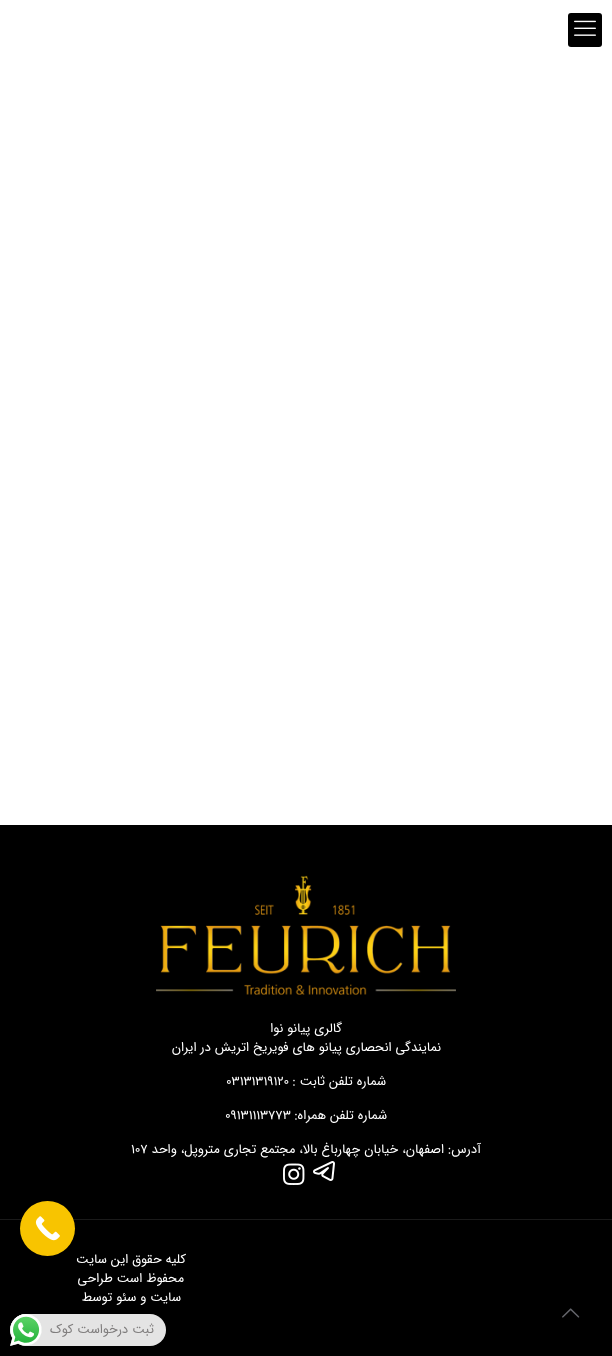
(async () => {
  const canvas = document.querySelector("canvas");
  canvas.width = 612;
  canvas.height = 1356;
  const ctx = canvas.getContext("2d");
  ctx.miterLimit = 4;
  ctx.fontKerning = "normal";
  async function loadImage(src) {
    const img = new Image();
    img.src = src;
    await img.decode();
    return img;
  }

  ctx.fillStyle = "#ffffff";
  ctx.fillRect(0, 0, 612, 1356);
  ctx.fillStyle = "#000000";
  ctx.beginPath();
  ctx.roundRect(568, 13, 34, 34, 3);
  ctx.fill();
  ctx.drawImage(await loadImage("img/1.png"), 574, 20, 22, 16);
  ctx.fillRect(0, 825, 612, 531);
  ctx.drawImage(await loadImage("img/2.png"), 156, 875, 300, 120);
  ctx.drawImage(await loadImage("img/3.png"), 313, 1161, 22, 20);
  ctx.drawImage(await loadImage("img/4.png"), 283, 1163, 22, 22);
  ctx.fillStyle = "#1a1a1a";
  ctx.fillRect(0, 1219, 612, 1);
  ctx.fillStyle = "#f8c400";
  ctx.beginPath();
  ctx.arc(47.5, 1228.5, 27.5, 0, Math.PI * 2);
  ctx.fill();
  ctx.drawImage(await loadImage("img/5.png"), 35, 1216, 25, 25);
  ctx.drawImage(await loadImage("img/6.png"), 562, 1308, 18, 10);
  ctx.fillStyle = "#e4e4e4";
  ctx.beginPath();
  ctx.roundRect(10, 1314, 156, 32, 16);
  ctx.fill();
  ctx.drawImage(await loadImage("img/7.png"), 10, 1314, 32, 32);
  ctx.direction = "rtl";
  ctx.font = "13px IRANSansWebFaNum";
  ctx.fillStyle = "#ffffff";
  for (const [text, x, y] of [
    ["گالری پیانو نوا", 342, 1032],
    ["نمایندگی انحصاری پیانو های فویریخ اتریش در ایران", 441, 1051],
    ["شماره تلفن ثابت :", 386, 1085],
  ]) {
    ctx.fillText(text, x, y);
  }
  ctx.direction = "ltr";
  ctx.fillText("03131319120", 226, 1085);
  ctx.direction = "rtl";
  ctx.fillText("شماره تلفن همراه:", 387, 1119);
  ctx.direction = "ltr";
  ctx.fillText("09131113773", 225, 1119);
  ctx.direction = "rtl";
  ctx.fillText("آدرس: اصفهان، خیابان چهارباغ بالا، مجتمع تجاری متروپل، واحد", 481, 1153);
  ctx.direction = "ltr";
  ctx.fillText("107", 131, 1153);
  ctx.direction = "rtl";
  for (const [text, x, y] of [
    ["کلیه حقوق این سایت", 186, 1263],
    ["محفوظ است طراحی", 184, 1282],
    ["سایت و سئو توسط", 181, 1301],
  ]) {
    ctx.fillText(text, x, y);
  }
  ctx.fillStyle = "#7f7d7d";
  ctx.fillText("ثبت درخواست کوک", 154, 1333);
})();
